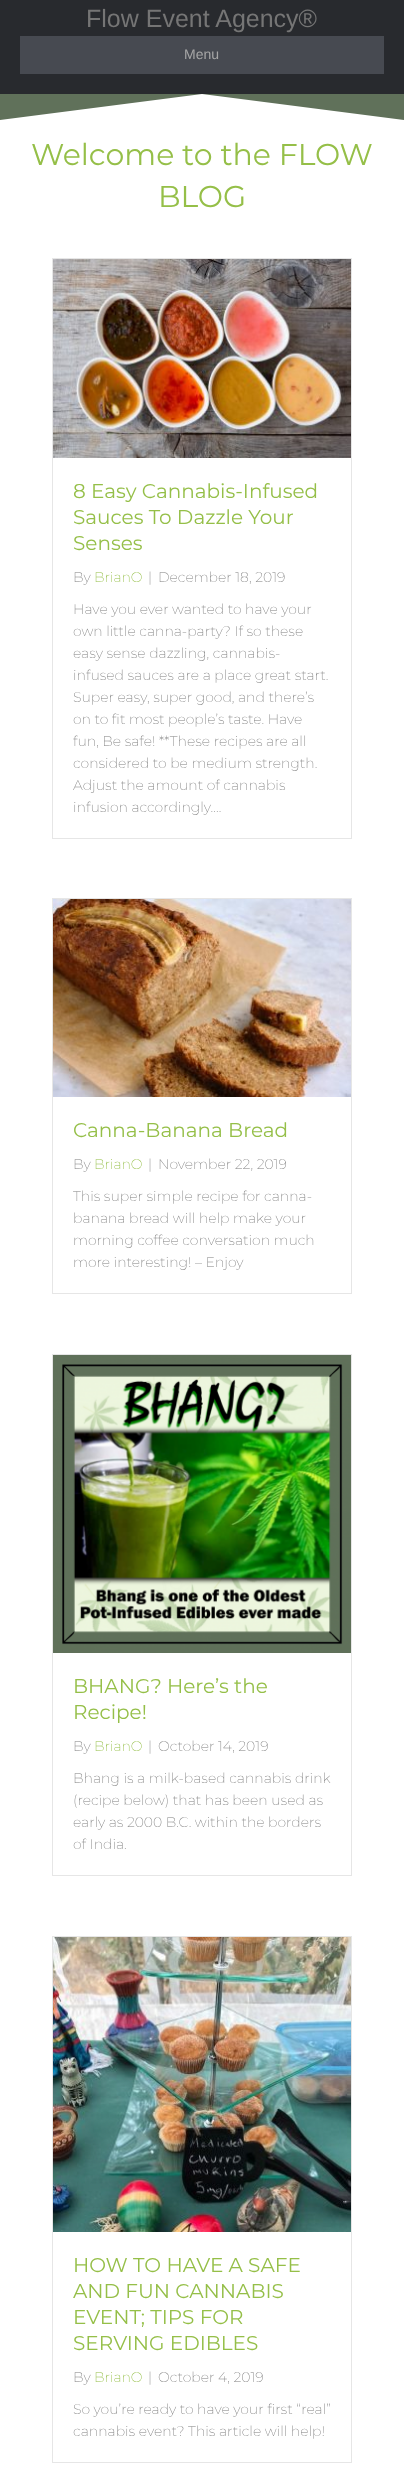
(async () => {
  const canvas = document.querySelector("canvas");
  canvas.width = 404;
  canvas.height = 2469;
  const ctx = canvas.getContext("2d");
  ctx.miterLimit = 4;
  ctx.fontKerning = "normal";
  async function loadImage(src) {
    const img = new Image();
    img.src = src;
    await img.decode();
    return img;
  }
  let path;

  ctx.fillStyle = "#282a2e";
  ctx.fillRect(0, 0, 404, 2469);
  ctx.fillStyle = "#474a51";
  ctx.fillRect(20, 36, 364, 38);
  ctx.fillStyle = "#ffffff";
  ctx.fillRect(0, 94, 404, 2375);
  ctx.fillStyle = "#60715a";
  path = new Path2D("M0 94H404V120L202 94L0 120Z");
  ctx.fill(path);
  ctx.strokeStyle = "#e6e6e6";
  ctx.strokeRect(52.5, 258.5, 299, 580);
  ctx.drawImage(await loadImage("img/1.png"), 53, 259, 298, 199);
  ctx.strokeRect(52.5, 898.5, 299, 395);
  ctx.drawImage(await loadImage("img/2.png"), 53, 899, 298, 198);
  ctx.strokeRect(52.5, 1354.5, 299, 521);
  ctx.drawImage(await loadImage("img/3.png"), 53, 1355, 298, 298);
  ctx.strokeRect(52.5, 1936.5, 299, 526);
  ctx.drawImage(await loadImage("img/4.png"), 53, 1937, 298, 295);
  ctx.font = "25px Liberation Sans";
  ctx.fillStyle = "#757575";
  ctx.fillText("Flow Event Agency®", 86, 27);
  ctx.font = "14px Liberation Sans";
  ctx.fillStyle = "#a6a6a6";
  ctx.fillText("Menu", 184, 59);
  ctx.font = "30px Montserrat";
  ctx.fillStyle = "#95bf48";
  ctx.fillText("Welcome to the FLOW", 31, 165);
  ctx.fillText("BLOG", 158, 207);
  ctx.font = "20px Montserrat";
  for (const [text, x, y] of [
    ["8 Easy Cannabis-Infused", 73, 498],
    ["Sauces To Dazzle Your", 73, 524],
    ["Senses", 73, 550],
  ]) {
    ctx.fillText(text, x, y);
  }
  ctx.font = "200 14px Montserrat";
  ctx.fillStyle = "#808080";
  ctx.fillText("By", 73, 582);
  ctx.fillStyle = "#95bf48";
  ctx.fillText("BrianO", 94, 582);
  ctx.fillStyle = "#808080";
  for (const [text, x, y] of [
    ["|", 148, 582],
    ["December 18, 2019", 158, 582],
    ["Have you ever wanted to have your", 73, 614],
    ["own little canna-party? If so these", 73, 636],
    ["easy sense dazzling, cannabis-", 73, 658],
    ["infused sauces are a place great start.", 73, 680],
    ["Super easy, super good, and there’s", 73, 702],
    ["on to fit most people’s taste. Have", 73, 724],
    ["fun, Be safe! **These recipes are all", 73, 746],
    ["considered to be medium strength.", 73, 768],
    ["Adjust the amount of cannabis", 73, 790],
    ["infusion accordingly.…", 73, 812],
  ]) {
    ctx.fillText(text, x, y);
  }
  ctx.font = "20px Montserrat";
  ctx.fillStyle = "#95bf48";
  ctx.fillText("Canna-Banana Bread", 73, 1137);
  ctx.font = "200 14px Montserrat";
  ctx.fillStyle = "#808080";
  ctx.fillText("By", 73, 1169);
  ctx.fillStyle = "#95bf48";
  ctx.fillText("BrianO", 94, 1169);
  ctx.fillStyle = "#808080";
  for (const [text, x, y] of [
    ["|", 148, 1169],
    ["November 22, 2019", 158, 1169],
    ["This super simple recipe for canna-", 73, 1201],
    ["banana bread will help make your", 73, 1223],
    ["morning coffee conversation much", 73, 1245],
    ["more interesting! – Enjoy", 73, 1267],
  ]) {
    ctx.fillText(text, x, y);
  }
  ctx.font = "20px Montserrat";
  ctx.fillStyle = "#95bf48";
  ctx.fillText("BHANG? Here’s the", 73, 1693);
  ctx.fillText("Recipe!", 73, 1719);
  ctx.font = "200 14px Montserrat";
  ctx.fillStyle = "#808080";
  ctx.fillText("By", 73, 1751);
  ctx.fillStyle = "#95bf48";
  ctx.fillText("BrianO", 94, 1751);
  ctx.fillStyle = "#808080";
  for (const [text, x, y] of [
    ["|", 148, 1751],
    ["October 14, 2019", 158, 1751],
    ["Bhang is a milk-based cannabis drink", 73, 1783],
    ["(recipe below) that has been used as", 73, 1805],
    ["early as 2000 B.C. within the borders", 73, 1827],
    ["of India.", 73, 1849],
  ]) {
    ctx.fillText(text, x, y);
  }
  ctx.font = "20px Montserrat";
  ctx.fillStyle = "#95bf48";
  for (const [text, x, y] of [
    ["HOW TO HAVE A SAFE", 73, 2272],
    ["AND FUN CANNABIS", 73, 2298],
    ["EVENT; TIPS FOR", 73, 2324],
    ["SERVING EDIBLES", 73, 2350],
  ]) {
    ctx.fillText(text, x, y);
  }
  ctx.font = "200 14px Montserrat";
  ctx.fillStyle = "#808080";
  ctx.fillText("By", 73, 2382);
  ctx.fillStyle = "#95bf48";
  ctx.fillText("BrianO", 94, 2382);
  ctx.fillStyle = "#808080";
  for (const [text, x, y] of [
    ["|", 148, 2382],
    ["October 4, 2019", 158, 2382],
    ["So you’re ready to have your first “real”", 73, 2414],
    ["cannabis event? This article will help!", 73, 2436],
  ]) {
    ctx.fillText(text, x, y);
  }
})();
